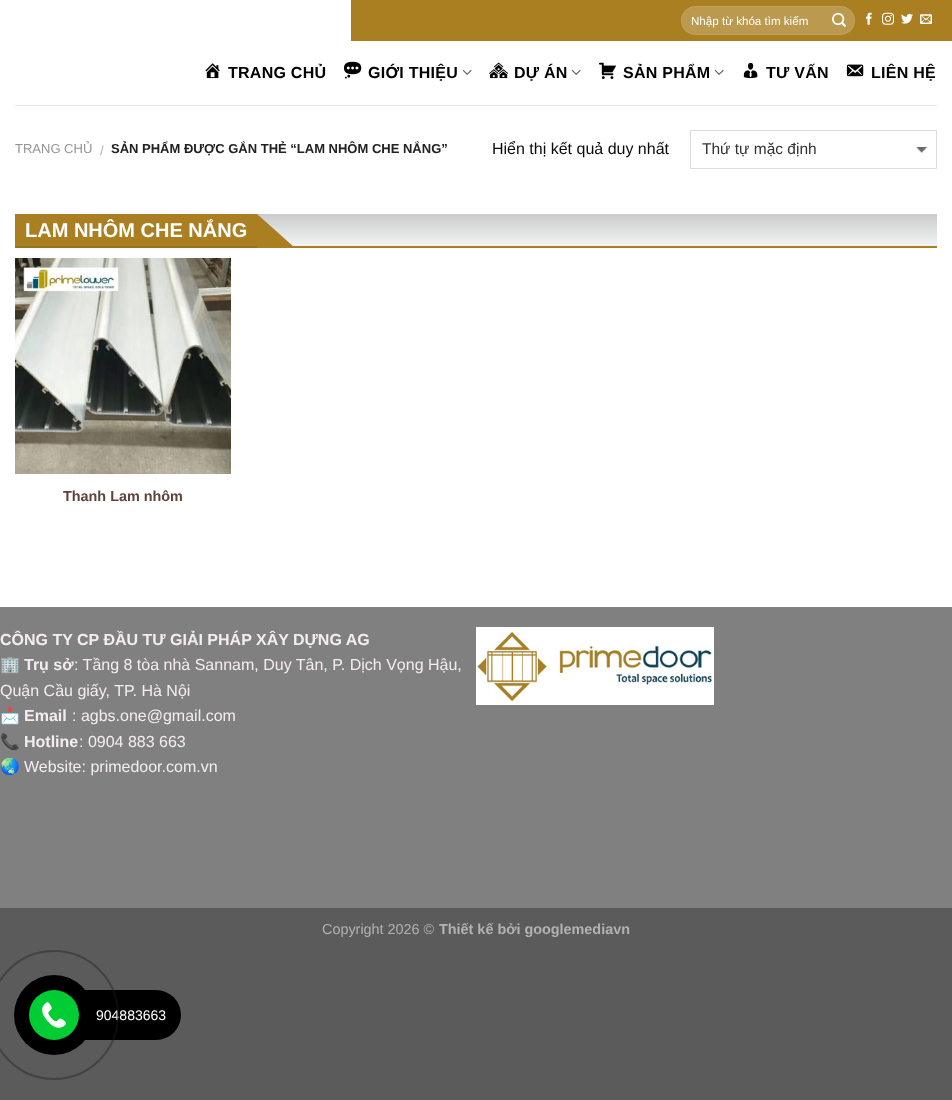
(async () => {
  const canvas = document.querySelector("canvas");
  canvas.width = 952;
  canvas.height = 1100;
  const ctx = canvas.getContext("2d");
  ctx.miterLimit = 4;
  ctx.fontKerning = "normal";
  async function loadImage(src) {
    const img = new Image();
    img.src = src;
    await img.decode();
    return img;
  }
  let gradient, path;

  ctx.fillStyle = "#5b5b5b";
  ctx.fillRect(0, 0, 952, 1100);
  for (const [x, y, w, h, color] of [
    [0, 41, 952, 566, "#ffffff"],
    [351, 0, 601, 41, "#aa7f22"],
    [0, 0, 351, 41, "#ffffff"],
  ]) {
    ctx.fillStyle = color;
    ctx.fillRect(x, y, w, h);
  }
  ctx.fillStyle = "#bb994e";
  ctx.beginPath();
  ctx.roundRect(681, 6, 174, 29, 14.5);
  ctx.fill();
  ctx.beginPath();
  ctx.roundRect(681.5, 6.5, 173, 28, 14);
  ctx.strokeStyle = "rgba(255, 255, 255, 0.09)";
  ctx.stroke();
  ctx.drawImage(await loadImage("img/1.png"), 832, 12, 14, 15);
  ctx.drawImage(await loadImage("img/2.png"), 866, 12, 6, 13);
  ctx.drawImage(await loadImage("img/3.png"), 882, 12, 12, 13);
  ctx.drawImage(await loadImage("img/4.png"), 901, 13, 12, 11);
  ctx.drawImage(await loadImage("img/5.png"), 920, 14, 12, 10);
  ctx.drawImage(await loadImage("img/6.png"), 205, 63, 15, 16);
  ctx.drawImage(await loadImage("img/7.png"), 344, 61, 18, 18);
  ctx.drawImage(await loadImage("img/8.png"), 462, 69, 10, 6);
  ctx.drawImage(await loadImage("img/9.png"), 489, 62, 20, 17);
  ctx.drawImage(await loadImage("img/8.png"), 571, 69, 10, 6);
  ctx.drawImage(await loadImage("img/10.png"), 599, 62, 18, 17);
  ctx.drawImage(await loadImage("img/8.png"), 714, 69, 10, 6);
  ctx.drawImage(await loadImage("img/11.png"), 743, 62, 15, 17);
  ctx.drawImage(await loadImage("img/12.png"), 846, 64, 18, 13);
  ctx.fillStyle = "#e7e7e7";
  ctx.fillRect(15, 105, 922, 1);
  ctx.drawImage(await loadImage("img/13.png"), 916, 147, 12, 6);
  ctx.strokeStyle = "#dddddd";
  ctx.strokeRect(690.5, 130.5, 246, 38);
  gradient = ctx.createLinearGradient(476, 214, 476, 246);
  gradient.addColorStop(0, "#cacbcb");
  gradient.addColorStop(1, "#f3f4f4");
  ctx.fillStyle = gradient;
  ctx.fillRect(257, 214, 680, 32);
  for (const [x, y, w, h, color] of [
    [257, 246, 680, 2, "#aa7f22"],
    [15, 214, 242, 32, "#aa7f22"],
    [15, 246, 242, 2, "#99721f"],
  ]) {
    ctx.fillStyle = color;
    ctx.fillRect(x, y, w, h);
  }
  ctx.fillStyle = "#aa7f22";
  path = new Path2D("M257 247V214L294 247Z");
  ctx.fill(path);
  ctx.drawImage(await loadImage("img/14.png"), 15, 258, 216, 216);
  ctx.fillStyle = "#808080";
  ctx.fillRect(0, 607, 952, 301);
  ctx.drawImage(await loadImage("img/15.png"), 476, 627, 238, 78);
  ctx.fillStyle = "#000000";
  ctx.beginPath();
  ctx.roundRect(29, 990, 152, 50, 25);
  ctx.fill();
  ctx.font = "11.6px Liberation Sans";
  ctx.fillStyle = "#ffffff";
  ctx.fillText("Nhập từ khóa tìm kiếm", 691, 25);
  ctx.letterSpacing = "0.25px";
  ctx.font = "bold 16px Liberation Sans";
  ctx.fillStyle = "#000000";
  for (const [text, x, y] of [
    ["TRANG CHỦ", 228, 78],
    ["GIỚI THIỆU", 368, 78],
    ["DỰ ÁN", 514, 78],
    ["SẢN PHẨM", 623, 78],
    ["TƯ VẤN", 766, 78],
    ["LIÊN HỆ", 871, 78],
  ]) {
    ctx.fillText(text, x, y);
  }
  ctx.letterSpacing = "0px";
  ctx.font = "13px Liberation Sans";
  ctx.fillStyle = "#949494";
  ctx.fillText("TRANG CHỦ", 15, 153);
  ctx.fillStyle = "#b2b2b2";
  ctx.fillText("/", 100, 155);
  ctx.font = "bold 13px Liberation Sans";
  ctx.fillStyle = "#222222";
  ctx.fillText("SẢN PHẨM ĐƯỢC GẮN THẺ “LAM NHÔM CHE NẮNG”", 111, 153);
  ctx.font = "16px Liberation Sans";
  ctx.fillStyle = "#0a0a0a";
  ctx.fillText("Hiển thị kết quả duy nhất", 492, 154);
  ctx.font = "15.5px Liberation Sans";
  ctx.fillStyle = "#333333";
  ctx.fillText("Thứ tự mặc định", 702, 154);
  ctx.font = "bold 20px Liberation Sans";
  ctx.fillStyle = "#ffffff";
  ctx.fillText("LAM NHÔM CHE NẮNG", 25, 237);
  ctx.font = "bold 14.4px Liberation Sans";
  ctx.fillStyle = "#5c4439";
  ctx.fillText("Thanh Lam nhôm", 63, 501);
  ctx.font = "bold 16px Liberation Sans";
  ctx.fillStyle = "#f5eded";
  ctx.fillText("CÔNG TY CP ĐẦU TƯ GIẢI PHÁP XÂY DỰNG AG", 0, 645);
  ctx.font = "bold 16px Noto Color Emoji";
  ctx.fillStyle = "#c0c0c0";
  ctx.fillText("🏢", 0, 670);
  ctx.font = "bold 16px Liberation Sans";
  ctx.fillStyle = "#f5eded";
  ctx.fillText("Trụ sở", 24, 670);
  ctx.font = "16px Liberation Sans";
  ctx.fillText(": Tầng 8 tòa nhà Sannam, Duy Tân, P. Dịch Vọng Hậu,", 74, 670);
  ctx.fillText("Quận Cầu giấy, TP. Hà Nội", 0, 696);
  ctx.font = "bold 16px Noto Color Emoji";
  ctx.fillStyle = "#c0c0c0";
  ctx.fillText("📩", 0, 721);
  ctx.font = "bold 16px Liberation Sans";
  ctx.fillStyle = "#f5eded";
  ctx.fillText("Email", 24, 721);
  ctx.font = "16px Liberation Sans";
  ctx.fillText(": agbs.one@gmail.com", 72, 721);
  ctx.font = "bold 16px Noto Color Emoji";
  ctx.fillStyle = "#c0c0c0";
  ctx.fillText("📞", 0, 747);
  ctx.font = "bold 16px Liberation Sans";
  ctx.fillStyle = "#f5eded";
  ctx.fillText("Hotline", 24, 747);
  ctx.font = "16px Liberation Sans";
  ctx.fillText(": 0904 883 663", 79, 747);
  ctx.font = "16px Noto Color Emoji";
  ctx.fillStyle = "#0a0a0a";
  ctx.fillText("🌏", 0, 772);
  ctx.font = "16px Liberation Sans";
  ctx.fillStyle = "#f5eded";
  ctx.fillText("Website: primedoor.com.vn", 24, 772);
  ctx.font = "14.4px Liberation Sans";
  ctx.fillStyle = "#b2b2b2";
  ctx.fillText("Copyright 2026 ©", 322, 934);
  ctx.font = "bold 14.4px Liberation Sans";
  ctx.fillText("Thiết kế bởi googlemediavn", 439, 934);
  ctx.font = "14px Liberation Sans";
  ctx.fillStyle = "#ffffff";
  ctx.fillText("904883663", 96, 1020);
  ctx.beginPath();
  ctx.arc(54, 1015, 64, 0, Math.PI * 2);
  ctx.strokeStyle = "rgba(30, 30, 30, 0.4)";
  ctx.lineWidth = 2;
  ctx.stroke();
  ctx.fillStyle = "#000000";
  ctx.beginPath();
  ctx.arc(54, 1015, 40, 0, Math.PI * 2);
  ctx.fill();
  ctx.fillStyle = "#00cc33";
  ctx.beginPath();
  ctx.arc(54, 1015, 25, 0, Math.PI * 2);
  ctx.fill();
  ctx.drawImage(await loadImage("img/16.png"), 42, 1002, 24, 26);
})();
